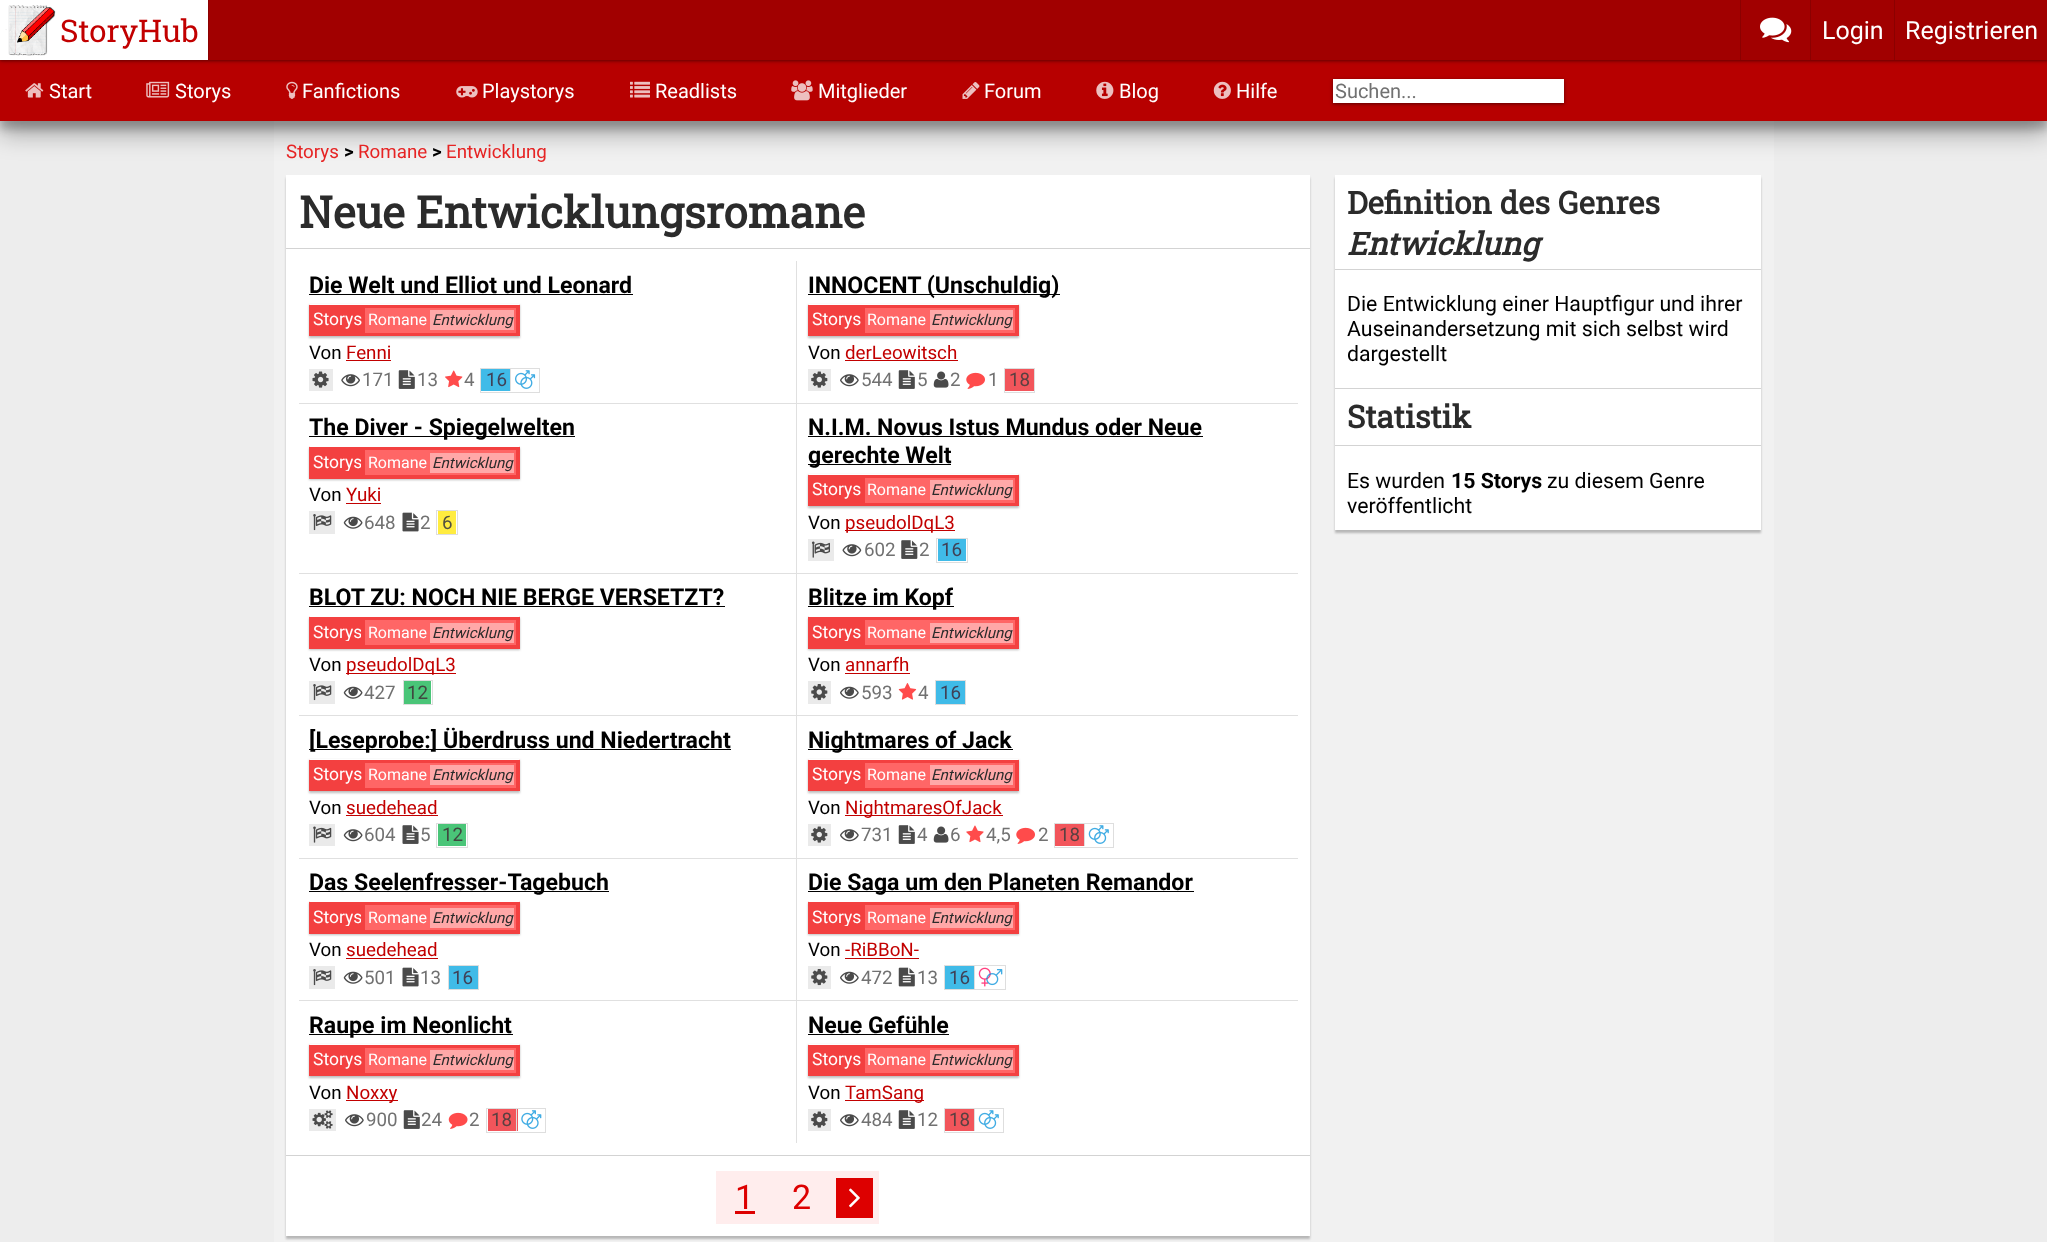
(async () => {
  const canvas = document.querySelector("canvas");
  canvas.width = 2047;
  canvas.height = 1242;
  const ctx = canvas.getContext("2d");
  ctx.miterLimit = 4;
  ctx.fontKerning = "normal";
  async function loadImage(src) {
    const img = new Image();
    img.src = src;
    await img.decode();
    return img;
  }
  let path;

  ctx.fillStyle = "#ededed";
  ctx.fillRect(0, 0, 2047, 1242);
  ctx.fillStyle = "#f1f1f1";
  ctx.fillRect(274, 121, 1500, 1121);
  ctx.fillStyle = "rgba(0, 0, 0, 0.22)";
  ctx.filter = "blur(4px)";
  ctx.beginPath();
  ctx.rect(0, 68, 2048, 61);
  ctx.fill();
  ctx.filter = "none";
  ctx.fillStyle = "rgba(0, 0, 0, 0.3)";
  ctx.filter = "blur(12.5px)";
  ctx.beginPath();
  ctx.rect(0, 73, 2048, 61);
  ctx.fill();
  ctx.filter = "none";
  ctx.fillStyle = "#b70000";
  ctx.fillRect(0, 60, 2047, 61);
  ctx.fillStyle = "rgba(0, 0, 0, 0.22)";
  ctx.filter = "blur(1px)";
  ctx.beginPath();
  ctx.rect(0, 1, 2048, 60);
  ctx.fill();
  ctx.filter = "none";
  ctx.fillStyle = "rgba(0, 0, 0, 0.3)";
  ctx.filter = "blur(2px)";
  ctx.beginPath();
  ctx.rect(0, 1, 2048, 60);
  ctx.fill();
  ctx.filter = "none";
  for (const [x, y, w, h, color] of [
    [209, 0, 1838, 60, "#a10000"],
    [0, 0, 208, 60, "#ffffff"],
    [208, 0, 1, 60, "#8b0000"],
  ]) {
    ctx.fillStyle = color;
    ctx.fillRect(x, y, w, h);
  }
  ctx.drawImage(await loadImage("img/1.png"), 5, 5, 51, 51);
  ctx.fillRect(1740, 0, 1, 60);
  ctx.drawImage(await loadImage("img/2.png"), 1760, 17, 32, 26);
  ctx.fillRect(1810, 0, 1, 60);
  ctx.fillRect(1894, 0, 1, 60);
  ctx.drawImage(await loadImage("img/3.png"), 25, 83, 19, 15);
  ctx.drawImage(await loadImage("img/4.png"), 146, 81, 24, 17);
  ctx.drawImage(await loadImage("img/5.png"), 286, 81, 12, 18);
  ctx.drawImage(await loadImage("img/6.png"), 456, 86, 22, 12);
  ctx.drawImage(await loadImage("img/7.png"), 630, 81, 20, 17);
  ctx.drawImage(await loadImage("img/8.png"), 791, 80, 22, 21);
  ctx.drawImage(await loadImage("img/9.png"), 962, 82, 18, 17);
  ctx.drawImage(await loadImage("img/10.png"), 1096, 81, 18, 18);
  ctx.drawImage(await loadImage("img/11.png"), 1213, 81, 18, 18);
  ctx.fillStyle = "rgba(0, 0, 0, 0.22)";
  ctx.filter = "blur(1px)";
  ctx.beginPath();
  ctx.rect(1333, 80, 231, 24);
  ctx.fill();
  ctx.filter = "none";
  ctx.fillStyle = "rgba(0, 0, 0, 0.3)";
  ctx.filter = "blur(2px)";
  ctx.beginPath();
  ctx.rect(1333, 80, 231, 24);
  ctx.fill();
  ctx.filter = "none";
  ctx.fillStyle = "#ffffff";
  ctx.fillRect(1333, 79, 231, 24);
  ctx.fillStyle = "rgba(0, 0, 0, 0.24)";
  ctx.filter = "blur(1px)";
  ctx.beginPath();
  ctx.rect(286, 178, 1024, 1061);
  ctx.fill();
  ctx.filter = "none";
  for (const [x, y, w, h, color] of [
    [286, 175, 1024, 1061, "#ffffff"],
    [286, 248, 1024, 1, "#d3d3d3"],
    [796, 261, 1, 882, "#e0e0e0"],
    [299, 403, 999, 1, "#e0e0e0"],
    [309, 294, 324, 1, "#000000"],
  ]) {
    ctx.fillStyle = color;
    ctx.fillRect(x, y, w, h);
  }
  ctx.fillStyle = "#bebebe";
  ctx.filter = "blur(1px)";
  ctx.beginPath();
  ctx.rect(309, 305, 211, 33);
  ctx.fill();
  ctx.filter = "none";
  ctx.fillStyle = "#f34040";
  ctx.fillRect(309, 304, 211, 32);
  ctx.fillStyle = "#ffffff";
  ctx.beginPath();
  ctx.roundRect(309, 304, 211, 1, 0.5);
  ctx.fill();
  for (const [x, y, w, h, color] of [
    [365, 308, 151, 25, "#ff6666"],
    [430, 310, 84, 20, "#ffa8a8"],
    [346, 360, 45, 1, "#c20000"],
    [309, 369, 24, 22, "#eaeaea"],
  ]) {
    ctx.fillStyle = color;
    ctx.fillRect(x, y, w, h);
  }
  ctx.drawImage(await loadImage("img/12.png"), 312, 371, 17, 17);
  ctx.drawImage(await loadImage("img/13.png"), 341, 374, 19, 13);
  ctx.drawImage(await loadImage("img/14.png"), 398, 370, 17, 19);
  ctx.drawImage(await loadImage("img/15.png"), 445, 370, 18, 18);
  ctx.strokeStyle = "#dedede";
  ctx.strokeRect(480.5, 368.5, 59, 24);
  ctx.fillStyle = "#40bbe8";
  ctx.fillRect(481, 369, 29, 22);
  ctx.fillStyle = "#dedede";
  ctx.fillRect(510, 369, 1, 22);
  ctx.drawImage(await loadImage("img/16.png"), 515, 370, 21, 19);
  ctx.fillStyle = "#000000";
  ctx.fillRect(808, 294, 252, 1);
  ctx.save();
  path = new Path2D("M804 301H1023V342H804ZM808 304H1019V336H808Z");
  ctx.clip(path, "evenodd");
  ctx.fillStyle = "#bebebe";
  ctx.filter = "blur(1px)";
  ctx.beginPath();
  ctx.rect(808, 305, 211, 33);
  ctx.fill();
  ctx.filter = "none";
  ctx.restore();
  ctx.fillStyle = "rgba(241, 38, 38, 0.88)";
  ctx.fillRect(808, 304, 211, 32);
  ctx.fillStyle = "#ffffff";
  ctx.beginPath();
  ctx.roundRect(808, 304, 211, 1, 0.5);
  ctx.fill();
  for (const [x, y, w, h, color] of [
    [865, 308, 150, 25, "#ff6666"],
    [930, 310, 83, 20, "#ffa8a8"],
    [845, 360, 113, 1, "#c20000"],
    [808, 369, 23, 22, "#eaeaea"],
  ]) {
    ctx.fillStyle = color;
    ctx.fillRect(x, y, w, h);
  }
  ctx.drawImage(await loadImage("img/17.png"), 811, 371, 17, 17);
  ctx.drawImage(await loadImage("img/18.png"), 840, 374, 19, 13);
  ctx.drawImage(await loadImage("img/14.png"), 898, 370, 17, 19);
  ctx.drawImage(await loadImage("img/19.png"), 933, 371, 16, 17);
  ctx.drawImage(await loadImage("img/20.png"), 966, 372, 19, 17);
  ctx.strokeRect(1004.5, 368.5, 30, 24);
  for (const [x, y, w, h, color] of [
    [1005, 369, 29, 22, "#f2555b"],
    [299, 573, 999, 1, "#e0e0e0"],
    [309, 436, 266, 1, "#000000"],
  ]) {
    ctx.fillStyle = color;
    ctx.fillRect(x, y, w, h);
  }
  ctx.save();
  path = new Path2D("M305 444H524V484H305ZM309 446H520V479H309Z");
  ctx.clip(path, "evenodd");
  ctx.fillStyle = "#bebebe";
  ctx.filter = "blur(1px)";
  ctx.beginPath();
  ctx.rect(309, 448, 211, 32);
  ctx.fill();
  ctx.filter = "none";
  ctx.restore();
  ctx.fillStyle = "rgba(241, 38, 38, 0.88)";
  ctx.fillRect(309, 446, 211, 33);
  ctx.fillStyle = "#ffffff";
  ctx.beginPath();
  ctx.roundRect(309, 446, 211, 1, 0.5);
  ctx.fill();
  for (const [x, y, w, h, color] of [
    [365, 450, 151, 25, "#ff6666"],
    [430, 453, 84, 20, "#ffa8a8"],
    [346, 503, 35, 1, "#c20000"],
    [309, 511, 26, 23, "#eaeaea"],
  ]) {
    ctx.fillStyle = color;
    ctx.fillRect(x, y, w, h);
  }
  ctx.drawImage(await loadImage("img/21.png"), 313, 514, 19, 17);
  ctx.drawImage(await loadImage("img/22.png"), 343, 516, 20, 13);
  ctx.drawImage(await loadImage("img/23.png"), 402, 512, 17, 20);
  ctx.strokeRect(436.5, 510.5, 21, 24);
  for (const [x, y, w, h, color] of [
    [438, 511, 18, 23, "#ffec40"],
    [808, 436, 395, 1, "#000000"],
    [808, 464, 143, 1, "#000000"],
  ]) {
    ctx.fillStyle = color;
    ctx.fillRect(x, y, w, h);
  }
  ctx.save();
  path = new Path2D("M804 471H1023V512H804ZM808 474H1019V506H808Z");
  ctx.clip(path, "evenodd");
  ctx.fillStyle = "#bebebe";
  ctx.filter = "blur(1px)";
  ctx.beginPath();
  ctx.rect(808, 475, 211, 33);
  ctx.fill();
  ctx.filter = "none";
  ctx.restore();
  ctx.fillStyle = "rgba(241, 38, 38, 0.88)";
  ctx.fillRect(808, 474, 211, 32);
  ctx.fillStyle = "#ffffff";
  ctx.beginPath();
  ctx.roundRect(808, 474, 211, 1, 0.5);
  ctx.fill();
  for (const [x, y, w, h, color] of [
    [865, 478, 150, 25, "#ff6666"],
    [930, 480, 83, 20, "#ffa8a8"],
    [845, 530, 110, 1, "#c20000"],
    [808, 539, 26, 22, "#eaeaea"],
  ]) {
    ctx.fillStyle = color;
    ctx.fillRect(x, y, w, h);
  }
  ctx.drawImage(await loadImage("img/24.png"), 811, 541, 19, 17);
  ctx.drawImage(await loadImage("img/25.png"), 842, 544, 20, 13);
  ctx.drawImage(await loadImage("img/26.png"), 901, 540, 17, 19);
  ctx.strokeRect(936.5, 538.5, 31, 24);
  for (const [x, y, w, h, color] of [
    [938, 539, 28, 22, "#40bbe8"],
    [299, 715, 999, 1, "#e0e0e0"],
    [309, 606, 416, 1, "#000000"],
  ]) {
    ctx.fillStyle = color;
    ctx.fillRect(x, y, w, h);
  }
  ctx.save();
  path = new Path2D("M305 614H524V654H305ZM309 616H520V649H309Z");
  ctx.clip(path, "evenodd");
  ctx.fillStyle = "#bebebe";
  ctx.filter = "blur(1px)";
  ctx.beginPath();
  ctx.rect(309, 618, 211, 32);
  ctx.fill();
  ctx.filter = "none";
  ctx.restore();
  ctx.fillStyle = "rgba(241, 38, 38, 0.88)";
  ctx.fillRect(309, 616, 211, 33);
  ctx.fillStyle = "#ffffff";
  ctx.beginPath();
  ctx.roundRect(309, 616, 211, 1, 0.5);
  ctx.fill();
  for (const [x, y, w, h, color] of [
    [365, 620, 151, 25, "#ff6666"],
    [430, 623, 84, 20, "#ffa8a8"],
    [346, 673, 110, 1, "#c20000"],
    [309, 681, 26, 23, "#eaeaea"],
  ]) {
    ctx.fillStyle = color;
    ctx.fillRect(x, y, w, h);
  }
  ctx.drawImage(await loadImage("img/21.png"), 313, 684, 19, 17);
  ctx.drawImage(await loadImage("img/22.png"), 343, 686, 20, 13);
  ctx.strokeRect(403.5, 680.5, 29, 24);
  ctx.fillStyle = "#4ac578";
  ctx.fillRect(404, 681, 27, 23);
  ctx.fillStyle = "#000000";
  ctx.fillRect(808, 606, 146, 1);
  ctx.save();
  path = new Path2D("M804 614H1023V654H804ZM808 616H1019V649H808Z");
  ctx.clip(path, "evenodd");
  ctx.fillStyle = "#bebebe";
  ctx.filter = "blur(1px)";
  ctx.beginPath();
  ctx.rect(808, 618, 211, 32);
  ctx.fill();
  ctx.filter = "none";
  ctx.restore();
  ctx.fillStyle = "rgba(241, 38, 38, 0.88)";
  ctx.fillRect(808, 616, 211, 33);
  ctx.fillStyle = "#ffffff";
  ctx.beginPath();
  ctx.roundRect(808, 616, 211, 1, 0.5);
  ctx.fill();
  for (const [x, y, w, h, color] of [
    [865, 620, 150, 25, "#ff6666"],
    [930, 623, 83, 20, "#ffa8a8"],
    [845, 673, 65, 1, "#c20000"],
    [808, 681, 23, 23, "#eaeaea"],
  ]) {
    ctx.fillStyle = color;
    ctx.fillRect(x, y, w, h);
  }
  ctx.drawImage(await loadImage("img/27.png"), 811, 684, 17, 17);
  ctx.drawImage(await loadImage("img/28.png"), 840, 686, 19, 13);
  ctx.drawImage(await loadImage("img/29.png"), 898, 683, 19, 17);
  ctx.strokeRect(935.5, 680.5, 30, 24);
  for (const [x, y, w, h, color] of [
    [936, 681, 29, 23, "#40bbe8"],
    [299, 858, 999, 1, "#e0e0e0"],
    [309, 749, 422, 1, "#000000"],
  ]) {
    ctx.fillStyle = color;
    ctx.fillRect(x, y, w, h);
  }
  ctx.fillStyle = "#bebebe";
  ctx.filter = "blur(1px)";
  ctx.beginPath();
  ctx.rect(309, 760, 211, 33);
  ctx.fill();
  ctx.filter = "none";
  ctx.fillStyle = "#f34040";
  ctx.fillRect(309, 759, 211, 32);
  ctx.fillStyle = "#ffffff";
  ctx.beginPath();
  ctx.roundRect(309, 759, 211, 1, 0.5);
  ctx.fill();
  for (const [x, y, w, h, color] of [
    [365, 763, 151, 25, "#ff6666"],
    [430, 765, 84, 20, "#ffa8a8"],
    [346, 815, 92, 1, "#c20000"],
    [309, 824, 26, 22, "#eaeaea"],
  ]) {
    ctx.fillStyle = color;
    ctx.fillRect(x, y, w, h);
  }
  ctx.drawImage(await loadImage("img/30.png"), 313, 826, 19, 17);
  ctx.drawImage(await loadImage("img/31.png"), 343, 829, 20, 13);
  ctx.drawImage(await loadImage("img/32.png"), 402, 825, 17, 19);
  ctx.strokeRect(436.5, 823.5, 31, 24);
  ctx.fillStyle = "#4ac578";
  ctx.fillRect(438, 824, 28, 22);
  ctx.fillStyle = "#000000";
  ctx.fillRect(808, 749, 205, 1);
  ctx.save();
  path = new Path2D("M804 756H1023V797H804ZM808 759H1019V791H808Z");
  ctx.clip(path, "evenodd");
  ctx.fillStyle = "#bebebe";
  ctx.filter = "blur(1px)";
  ctx.beginPath();
  ctx.rect(808, 760, 211, 33);
  ctx.fill();
  ctx.filter = "none";
  ctx.restore();
  ctx.fillStyle = "rgba(241, 38, 38, 0.88)";
  ctx.fillRect(808, 759, 211, 32);
  ctx.fillStyle = "#ffffff";
  ctx.beginPath();
  ctx.roundRect(808, 759, 211, 1, 0.5);
  ctx.fill();
  for (const [x, y, w, h, color] of [
    [865, 763, 150, 25, "#ff6666"],
    [930, 765, 83, 20, "#ffa8a8"],
    [845, 815, 158, 1, "#c20000"],
    [808, 824, 23, 22, "#eaeaea"],
  ]) {
    ctx.fillStyle = color;
    ctx.fillRect(x, y, w, h);
  }
  ctx.drawImage(await loadImage("img/17.png"), 811, 826, 17, 17);
  ctx.drawImage(await loadImage("img/18.png"), 840, 829, 19, 13);
  ctx.drawImage(await loadImage("img/14.png"), 898, 825, 17, 19);
  ctx.drawImage(await loadImage("img/19.png"), 933, 826, 16, 17);
  ctx.drawImage(await loadImage("img/33.png"), 966, 825, 18, 18);
  ctx.drawImage(await loadImage("img/20.png"), 1016, 827, 19, 17);
  ctx.strokeRect(1054.5, 823.5, 59, 24);
  ctx.fillStyle = "#f2555b";
  ctx.fillRect(1055, 824, 29, 22);
  ctx.fillStyle = "#dedede";
  ctx.fillRect(1084, 824, 1, 22);
  ctx.drawImage(await loadImage("img/34.png"), 1088, 825, 21, 19);
  ctx.fillStyle = "#e0e0e0";
  ctx.fillRect(299, 1000, 999, 1);
  ctx.fillStyle = "#000000";
  ctx.fillRect(309, 891, 300, 1);
  ctx.save();
  path = new Path2D("M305 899H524V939H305ZM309 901H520V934H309Z");
  ctx.clip(path, "evenodd");
  ctx.fillStyle = "#bebebe";
  ctx.filter = "blur(1px)";
  ctx.beginPath();
  ctx.rect(309, 903, 211, 32);
  ctx.fill();
  ctx.filter = "none";
  ctx.restore();
  ctx.fillStyle = "rgba(241, 38, 38, 0.88)";
  ctx.fillRect(309, 901, 211, 33);
  ctx.fillStyle = "#ffffff";
  ctx.beginPath();
  ctx.roundRect(309, 901, 211, 1, 0.5);
  ctx.fill();
  for (const [x, y, w, h, color] of [
    [365, 905, 151, 25, "#ff6666"],
    [430, 908, 84, 20, "#ffa8a8"],
    [346, 958, 92, 1, "#c20000"],
    [309, 966, 26, 23, "#eaeaea"],
  ]) {
    ctx.fillStyle = color;
    ctx.fillRect(x, y, w, h);
  }
  ctx.drawImage(await loadImage("img/21.png"), 313, 969, 19, 17);
  ctx.drawImage(await loadImage("img/22.png"), 343, 971, 20, 13);
  ctx.drawImage(await loadImage("img/23.png"), 402, 967, 17, 20);
  ctx.strokeRect(448.5, 965.5, 30, 24);
  ctx.fillStyle = "#40bbe8";
  ctx.fillRect(449, 966, 29, 23);
  ctx.fillStyle = "#000000";
  ctx.fillRect(808, 891, 386, 1);
  ctx.save();
  path = new Path2D("M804 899H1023V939H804ZM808 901H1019V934H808Z");
  ctx.clip(path, "evenodd");
  ctx.fillStyle = "#bebebe";
  ctx.filter = "blur(1px)";
  ctx.beginPath();
  ctx.rect(808, 903, 211, 32);
  ctx.fill();
  ctx.filter = "none";
  ctx.restore();
  ctx.fillStyle = "rgba(241, 38, 38, 0.88)";
  ctx.fillRect(808, 901, 211, 33);
  ctx.fillStyle = "#ffffff";
  ctx.beginPath();
  ctx.roundRect(808, 901, 211, 1, 0.5);
  ctx.fill();
  for (const [x, y, w, h, color] of [
    [865, 905, 150, 25, "#ff6666"],
    [930, 908, 83, 20, "#ffa8a8"],
    [845, 958, 74, 1, "#c20000"],
    [808, 966, 23, 23, "#eaeaea"],
  ]) {
    ctx.fillStyle = color;
    ctx.fillRect(x, y, w, h);
  }
  ctx.drawImage(await loadImage("img/27.png"), 811, 969, 17, 17);
  ctx.drawImage(await loadImage("img/28.png"), 840, 971, 19, 13);
  ctx.drawImage(await loadImage("img/35.png"), 898, 967, 17, 20);
  ctx.strokeRect(944.5, 965.5, 61, 24);
  ctx.fillStyle = "#40bbe8";
  ctx.fillRect(945, 966, 29, 23);
  ctx.fillStyle = "#dedede";
  ctx.fillRect(974, 966, 1, 23);
  ctx.drawImage(await loadImage("img/36.png"), 978, 967, 13, 20);
  ctx.drawImage(await loadImage("img/37.png"), 986, 969, 17, 17);
  ctx.fillStyle = "#000000";
  ctx.fillRect(309, 1034, 204, 1);
  ctx.fillStyle = "#bebebe";
  ctx.filter = "blur(1px)";
  ctx.beginPath();
  ctx.rect(309, 1045, 211, 33);
  ctx.fill();
  ctx.filter = "none";
  ctx.fillStyle = "#f34040";
  ctx.fillRect(309, 1044, 211, 32);
  ctx.fillStyle = "#ffffff";
  ctx.beginPath();
  ctx.roundRect(309, 1044, 211, 1, 0.5);
  ctx.fill();
  for (const [x, y, w, h, color] of [
    [365, 1048, 151, 25, "#ff6666"],
    [430, 1050, 84, 20, "#ffa8a8"],
    [346, 1100, 52, 1, "#c20000"],
    [309, 1109, 27, 22, "#eaeaea"],
  ]) {
    ctx.fillStyle = color;
    ctx.fillRect(x, y, w, h);
  }
  ctx.drawImage(await loadImage("img/38.png"), 312, 1110, 21, 19);
  ctx.drawImage(await loadImage("img/18.png"), 345, 1114, 19, 13);
  ctx.drawImage(await loadImage("img/14.png"), 403, 1110, 17, 19);
  ctx.drawImage(await loadImage("img/39.png"), 448, 1112, 20, 17);
  ctx.strokeRect(486.5, 1108.5, 59, 24);
  ctx.fillStyle = "#f2555b";
  ctx.fillRect(488, 1109, 30, 22);
  ctx.fillStyle = "#dedede";
  ctx.fillRect(516, 1109, 1, 22);
  ctx.drawImage(await loadImage("img/40.png"), 521, 1110, 21, 19);
  ctx.fillStyle = "#000000";
  ctx.fillRect(808, 1034, 141, 1);
  ctx.save();
  path = new Path2D("M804 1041H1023V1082H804ZM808 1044H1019V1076H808Z");
  ctx.clip(path, "evenodd");
  ctx.fillStyle = "#bebebe";
  ctx.filter = "blur(1px)";
  ctx.beginPath();
  ctx.rect(808, 1045, 211, 33);
  ctx.fill();
  ctx.filter = "none";
  ctx.restore();
  ctx.fillStyle = "rgba(241, 38, 38, 0.88)";
  ctx.fillRect(808, 1044, 211, 32);
  ctx.fillStyle = "#ffffff";
  ctx.beginPath();
  ctx.roundRect(808, 1044, 211, 1, 0.5);
  ctx.fill();
  for (const [x, y, w, h, color] of [
    [865, 1048, 150, 25, "#ff6666"],
    [930, 1050, 83, 20, "#ffa8a8"],
    [845, 1100, 79, 1, "#c20000"],
    [808, 1109, 23, 22, "#eaeaea"],
  ]) {
    ctx.fillStyle = color;
    ctx.fillRect(x, y, w, h);
  }
  ctx.drawImage(await loadImage("img/17.png"), 811, 1111, 17, 17);
  ctx.drawImage(await loadImage("img/18.png"), 840, 1114, 19, 13);
  ctx.drawImage(await loadImage("img/14.png"), 898, 1110, 17, 19);
  ctx.strokeRect(944.5, 1108.5, 59, 24);
  ctx.fillStyle = "#f2555b";
  ctx.fillRect(945, 1109, 29, 22);
  ctx.fillStyle = "#dedede";
  ctx.fillRect(974, 1109, 1, 22);
  ctx.drawImage(await loadImage("img/34.png"), 978, 1110, 21, 19);
  for (const [x, y, w, h, color] of [
    [286, 1155, 1024, 1, "#d3d3d3"],
    [716, 1171, 163, 53, "#ffeded"],
    [735, 1211, 20, 3, "#dd0000"],
    [836, 1178, 37, 40, "#dd0000"],
  ]) {
    ctx.fillStyle = color;
    ctx.fillRect(x, y, w, h);
  }
  ctx.drawImage(await loadImage("img/41.png"), 849, 1188, 11, 20);
  ctx.fillStyle = "rgba(0, 0, 0, 0.24)";
  ctx.filter = "blur(1px)";
  ctx.beginPath();
  ctx.rect(1335, 178, 426, 355);
  ctx.fill();
  ctx.filter = "none";
  for (const [x, y, w, h, color] of [
    [1335, 175, 426, 355, "#ffffff"],
    [1335, 269, 426, 1, "#d3d3d3"],
    [1335, 388, 426, 1, "#d3d3d3"],
    [1335, 445, 426, 1, "#d3d3d3"],
  ]) {
    ctx.fillStyle = color;
    ctx.fillRect(x, y, w, h);
  }
  ctx.font = "31.25px Roboto Slab";
  ctx.fillStyle = "#c20000";
  ctx.fillText("StoryHub", 60, 42);
  ctx.font = "25px Roboto";
  ctx.fillStyle = "#ffffff";
  ctx.fillText("Login", 1822, 39);
  ctx.fillText("Registrieren", 1905, 39);
  ctx.font = "20px Roboto";
  for (const [text, x, y] of [
    ["Start", 49, 98],
    ["Storys", 175, 98],
    ["Fanfictions", 302, 98],
    ["Playstorys", 482, 98],
    ["Readlists", 655, 98],
    ["Mitglieder", 818, 98],
    ["Forum", 984, 98],
    ["Blog", 1119, 98],
    ["Hilfe", 1236, 98],
  ]) {
    ctx.fillText(text, x, y);
  }
  ctx.fillStyle = "#717171";
  ctx.fillText("Suchen...", 1335, 98);
  ctx.font = "18.75px Roboto";
  ctx.fillStyle = "#e62424";
  ctx.fillText("Storys", 286, 158);
  ctx.font = "bold 18.75px Roboto";
  ctx.fillStyle = "#000000";
  ctx.fillText(">", 344, 158);
  ctx.font = "18.75px Roboto";
  ctx.fillStyle = "#e62424";
  ctx.fillText("Romane", 358, 158);
  ctx.font = "bold 18.75px Roboto";
  ctx.fillStyle = "#000000";
  ctx.fillText(">", 432, 158);
  ctx.font = "18.75px Roboto";
  ctx.fillStyle = "#e62424";
  ctx.fillText("Entwicklung", 446, 158);
  ctx.font = "bold 43.75px Roboto Slab";
  ctx.fillStyle = "#2b2b2b";
  ctx.fillText("Neue Entwicklungsromane", 299, 228);
  ctx.font = "bold 23.1px Roboto";
  ctx.fillStyle = "#000000";
  ctx.fillText("Die Welt und Elliot und Leonard", 309, 293);
  ctx.font = "17.5px Roboto";
  ctx.fillStyle = "#ffffff";
  ctx.fillText("Storys", 313, 325);
  ctx.font = "16px Roboto";
  ctx.fillText("Romane", 368, 325);
  ctx.font = "italic 15px Roboto";
  ctx.fillStyle = "#2b2b2b";
  ctx.fillText("Entwicklung", 432, 325);
  ctx.font = "18.75px Roboto";
  ctx.fillStyle = "#000000";
  ctx.fillText("Von", 309, 359);
  ctx.fillStyle = "#c20000";
  ctx.fillText("Fenni", 346, 359);
  ctx.fillStyle = "#717171";
  for (const [text, x, y] of [
    ["171", 362, 386],
    ["13", 417, 386],
    ["4", 464, 386],
  ]) {
    ctx.fillText(text, x, y);
  }
  ctx.fillStyle = "#404157";
  ctx.fillText("16", 486, 386);
  ctx.font = "bold 23.1px Roboto";
  ctx.fillStyle = "#000000";
  ctx.fillText("INNOCENT (Unschuldig)", 808, 293);
  ctx.font = "17.5px Roboto";
  ctx.fillStyle = "#ffffff";
  ctx.fillText("Storys", 812, 325);
  ctx.font = "16px Roboto";
  ctx.fillText("Romane", 867, 325);
  ctx.font = "italic 15px Roboto";
  ctx.fillStyle = "#2b2b2b";
  ctx.fillText("Entwicklung", 931, 325);
  ctx.font = "18.75px Roboto";
  ctx.fillStyle = "#000000";
  ctx.fillText("Von", 808, 359);
  ctx.fillStyle = "#c20000";
  ctx.fillText("derLeowitsch", 845, 359);
  ctx.fillStyle = "#717171";
  for (const [text, x, y] of [
    ["544", 861, 386],
    ["5", 917, 386],
    ["2", 950, 386],
    ["1", 988, 386],
  ]) {
    ctx.fillText(text, x, y);
  }
  ctx.fillStyle = "#5b4041";
  ctx.fillText("18", 1009, 386);
  ctx.font = "bold 23.1px Roboto";
  ctx.fillStyle = "#000000";
  ctx.fillText("The Diver - Spiegelwelten", 309, 435);
  ctx.save();
  ctx.beginPath();
  ctx.rect(313, 451, 48, 20);
  ctx.clip();
  ctx.font = "17.5px Roboto";
  ctx.fillStyle = "#ffffff";
  ctx.fillText("Storys", 313, 468);
  ctx.restore();
  ctx.font = "16px Roboto";
  ctx.fillStyle = "#ffffff";
  ctx.fillText("Romane", 368, 468);
  ctx.font = "italic 15px Roboto";
  ctx.fillStyle = "#2b2b2b";
  ctx.fillText("Entwicklung", 432, 468);
  ctx.font = "18.75px Roboto";
  ctx.fillStyle = "#000000";
  ctx.fillText("Von", 309, 501);
  ctx.fillStyle = "#c20000";
  ctx.fillText("Yuki", 346, 501);
  ctx.fillStyle = "#717171";
  ctx.fillText("648", 364, 529);
  ctx.fillText("2", 420, 529);
  ctx.fillStyle = "#535140";
  ctx.fillText("6", 442, 529);
  ctx.font = "bold 23.1px Roboto";
  ctx.fillStyle = "#000000";
  ctx.fillText("N.I.M. Novus Istus Mundus oder Neue", 808, 435);
  ctx.fillText("gerechte Welt", 808, 463);
  ctx.font = "17.5px Roboto";
  ctx.fillStyle = "#ffffff";
  ctx.fillText("Storys", 812, 495);
  ctx.font = "16px Roboto";
  ctx.fillText("Romane", 867, 495);
  ctx.font = "italic 15px Roboto";
  ctx.fillStyle = "#2b2b2b";
  ctx.fillText("Entwicklung", 931, 495);
  ctx.font = "18.75px Roboto";
  ctx.fillStyle = "#000000";
  ctx.fillText("Von", 808, 529);
  ctx.fillStyle = "#c20000";
  ctx.fillText("pseudolDqL3", 845, 529);
  ctx.fillStyle = "#717171";
  ctx.fillText("602", 864, 556);
  ctx.fillText("2", 919, 556);
  ctx.fillStyle = "#404157";
  ctx.fillText("16", 941, 556);
  ctx.font = "bold 23.1px Roboto";
  ctx.fillStyle = "#000000";
  ctx.fillText("BLOT ZU: NOCH NIE BERGE VERSETZT?", 309, 605);
  ctx.save();
  ctx.beginPath();
  ctx.rect(313, 621, 48, 20);
  ctx.clip();
  ctx.font = "17.5px Roboto";
  ctx.fillStyle = "#ffffff";
  ctx.fillText("Storys", 313, 638);
  ctx.restore();
  ctx.font = "16px Roboto";
  ctx.fillStyle = "#ffffff";
  ctx.fillText("Romane", 368, 638);
  ctx.font = "italic 15px Roboto";
  ctx.fillStyle = "#2b2b2b";
  ctx.fillText("Entwicklung", 432, 638);
  ctx.font = "18.75px Roboto";
  ctx.fillStyle = "#000000";
  ctx.fillText("Von", 309, 671);
  ctx.fillStyle = "#c20000";
  ctx.fillText("pseudolDqL3", 346, 671);
  ctx.fillStyle = "#717171";
  ctx.fillText("427", 364, 699);
  ctx.fillStyle = "#404840";
  ctx.fillText("12", 407, 699);
  ctx.font = "bold 23.1px Roboto";
  ctx.fillStyle = "#000000";
  ctx.fillText("Blitze im Kopf", 808, 605);
  ctx.save();
  ctx.beginPath();
  ctx.rect(811, 621, 50, 20);
  ctx.clip();
  ctx.font = "17.5px Roboto";
  ctx.fillStyle = "#ffffff";
  ctx.fillText("Storys", 812, 638);
  ctx.restore();
  ctx.font = "16px Roboto";
  ctx.fillStyle = "#ffffff";
  ctx.fillText("Romane", 867, 638);
  ctx.font = "italic 15px Roboto";
  ctx.fillStyle = "#2b2b2b";
  ctx.fillText("Entwicklung", 931, 638);
  ctx.font = "18.75px Roboto";
  ctx.fillStyle = "#000000";
  ctx.fillText("Von", 808, 671);
  ctx.fillStyle = "#c20000";
  ctx.fillText("annarfh", 845, 671);
  ctx.fillStyle = "#717171";
  ctx.fillText("593", 861, 699);
  ctx.fillText("4", 918, 699);
  ctx.fillStyle = "#404157";
  ctx.fillText("16", 940, 699);
  ctx.font = "bold 23.1px Roboto";
  ctx.fillStyle = "#000000";
  ctx.fillText("[Leseprobe:] Überdruss und Niedertracht", 309, 748);
  ctx.font = "17.5px Roboto";
  ctx.fillStyle = "#ffffff";
  ctx.fillText("Storys", 313, 780);
  ctx.font = "16px Roboto";
  ctx.fillText("Romane", 368, 780);
  ctx.font = "italic 15px Roboto";
  ctx.fillStyle = "#2b2b2b";
  ctx.fillText("Entwicklung", 432, 780);
  ctx.font = "18.75px Roboto";
  ctx.fillStyle = "#000000";
  ctx.fillText("Von", 309, 814);
  ctx.fillStyle = "#c20000";
  ctx.fillText("suedehead", 346, 814);
  ctx.fillStyle = "#717171";
  ctx.fillText("604", 364, 841);
  ctx.fillText("5", 420, 841);
  ctx.fillStyle = "#404840";
  ctx.fillText("12", 442, 841);
  ctx.font = "bold 23.1px Roboto";
  ctx.fillStyle = "#000000";
  ctx.fillText("Nightmares of Jack", 808, 748);
  ctx.font = "17.5px Roboto";
  ctx.fillStyle = "#ffffff";
  ctx.fillText("Storys", 812, 780);
  ctx.font = "16px Roboto";
  ctx.fillText("Romane", 867, 780);
  ctx.font = "italic 15px Roboto";
  ctx.fillStyle = "#2b2b2b";
  ctx.fillText("Entwicklung", 931, 780);
  ctx.font = "18.75px Roboto";
  ctx.fillStyle = "#000000";
  ctx.fillText("Von", 808, 814);
  ctx.fillStyle = "#c20000";
  ctx.fillText("NightmaresOfJack", 845, 814);
  ctx.fillStyle = "#717171";
  for (const [text, x, y] of [
    ["731", 861, 841],
    ["4", 917, 841],
    ["6", 950, 841],
    ["4,5", 986, 841],
    ["2", 1038, 841],
  ]) {
    ctx.fillText(text, x, y);
  }
  ctx.fillStyle = "#5b4041";
  ctx.fillText("18", 1059, 841);
  ctx.font = "bold 23.1px Roboto";
  ctx.fillStyle = "#000000";
  ctx.fillText("Das Seelenfresser-Tagebuch", 309, 890);
  ctx.save();
  ctx.beginPath();
  ctx.rect(313, 906, 48, 20);
  ctx.clip();
  ctx.font = "17.5px Roboto";
  ctx.fillStyle = "#ffffff";
  ctx.fillText("Storys", 313, 923);
  ctx.restore();
  ctx.font = "16px Roboto";
  ctx.fillStyle = "#ffffff";
  ctx.fillText("Romane", 368, 923);
  ctx.font = "italic 15px Roboto";
  ctx.fillStyle = "#2b2b2b";
  ctx.fillText("Entwicklung", 432, 923);
  ctx.font = "18.75px Roboto";
  ctx.fillStyle = "#000000";
  ctx.fillText("Von", 309, 956);
  ctx.fillStyle = "#c20000";
  ctx.fillText("suedehead", 346, 956);
  ctx.fillStyle = "#717171";
  ctx.fillText("501", 364, 984);
  ctx.fillText("13", 420, 984);
  ctx.fillStyle = "#404157";
  ctx.fillText("16", 452, 984);
  ctx.font = "bold 23.1px Roboto";
  ctx.fillStyle = "#000000";
  ctx.fillText("Die Saga um den Planeten Remandor", 808, 890);
  ctx.save();
  ctx.beginPath();
  ctx.rect(811, 906, 50, 20);
  ctx.clip();
  ctx.font = "17.5px Roboto";
  ctx.fillStyle = "#ffffff";
  ctx.fillText("Storys", 812, 923);
  ctx.restore();
  ctx.font = "16px Roboto";
  ctx.fillStyle = "#ffffff";
  ctx.fillText("Romane", 867, 923);
  ctx.font = "italic 15px Roboto";
  ctx.fillStyle = "#2b2b2b";
  ctx.fillText("Entwicklung", 931, 923);
  ctx.font = "18.75px Roboto";
  ctx.fillStyle = "#000000";
  ctx.fillText("Von", 808, 956);
  ctx.fillStyle = "#c20000";
  ctx.fillText("-RiBBoN-", 845, 956);
  ctx.fillStyle = "#717171";
  ctx.fillText("472", 861, 984);
  ctx.fillText("13", 917, 984);
  ctx.fillStyle = "#404157";
  ctx.fillText("16", 949, 984);
  ctx.font = "bold 23.1px Roboto";
  ctx.fillStyle = "#000000";
  ctx.fillText("Raupe im Neonlicht", 309, 1033);
  ctx.font = "17.5px Roboto";
  ctx.fillStyle = "#ffffff";
  ctx.fillText("Storys", 313, 1065);
  ctx.font = "16px Roboto";
  ctx.fillText("Romane", 368, 1065);
  ctx.font = "italic 15px Roboto";
  ctx.fillStyle = "#2b2b2b";
  ctx.fillText("Entwicklung", 432, 1065);
  ctx.font = "18.75px Roboto";
  ctx.fillStyle = "#000000";
  ctx.fillText("Von", 309, 1099);
  ctx.fillStyle = "#c20000";
  ctx.fillText("Noxxy", 346, 1099);
  ctx.fillStyle = "#717171";
  for (const [text, x, y] of [
    ["900", 366, 1126],
    ["24", 421, 1126],
    ["2", 469, 1126],
  ]) {
    ctx.fillText(text, x, y);
  }
  ctx.fillStyle = "#5b4041";
  ctx.fillText("18", 491, 1126);
  ctx.font = "bold 23.1px Roboto";
  ctx.fillStyle = "#000000";
  ctx.fillText("Neue Gefühle", 808, 1033);
  ctx.font = "17.5px Roboto";
  ctx.fillStyle = "#ffffff";
  ctx.fillText("Storys", 812, 1065);
  ctx.font = "16px Roboto";
  ctx.fillText("Romane", 867, 1065);
  ctx.font = "italic 15px Roboto";
  ctx.fillStyle = "#2b2b2b";
  ctx.fillText("Entwicklung", 931, 1065);
  ctx.font = "18.75px Roboto";
  ctx.fillStyle = "#000000";
  ctx.fillText("Von", 808, 1099);
  ctx.fillStyle = "#c20000";
  ctx.fillText("TamSang", 845, 1099);
  ctx.fillStyle = "#717171";
  ctx.fillText("484", 861, 1126);
  ctx.fillText("12", 917, 1126);
  ctx.fillStyle = "#5b4041";
  ctx.fillText("18", 949, 1126);
  ctx.font = "34px Roboto";
  ctx.fillStyle = "#dd0000";
  ctx.fillText("1", 735, 1209);
  ctx.fillText("2", 792, 1209);
  ctx.font = "bold 31.25px Roboto Slab";
  ctx.fillStyle = "#2b2b2b";
  ctx.fillText("Definition des Genres", 1347, 214);
  ctx.font = "italic bold 31.25px Roboto Slab";
  ctx.fillText("Entwicklung", 1347, 255);
  ctx.font = "21.25px Roboto";
  ctx.fillStyle = "#000000";
  for (const [text, x, y] of [
    ["Die Entwicklung einer Hauptfigur und ihrer", 1347, 311],
    ["Auseinandersetzung mit sich selbst wird", 1347, 336],
    ["dargestellt", 1347, 361],
  ]) {
    ctx.fillText(text, x, y);
  }
  ctx.font = "bold 31.25px Roboto Slab";
  ctx.fillStyle = "#2b2b2b";
  ctx.fillText("Statistik", 1347, 428);
  ctx.font = "21.25px Roboto";
  ctx.fillStyle = "#000000";
  ctx.fillText("Es wurden", 1347, 488);
  ctx.font = "bold 21.25px Roboto";
  ctx.fillText("15 Storys", 1451, 488);
  ctx.font = "21.25px Roboto";
  ctx.fillText("zu diesem Genre", 1547, 488);
  ctx.fillText("veröffentlicht", 1347, 513);
})();
